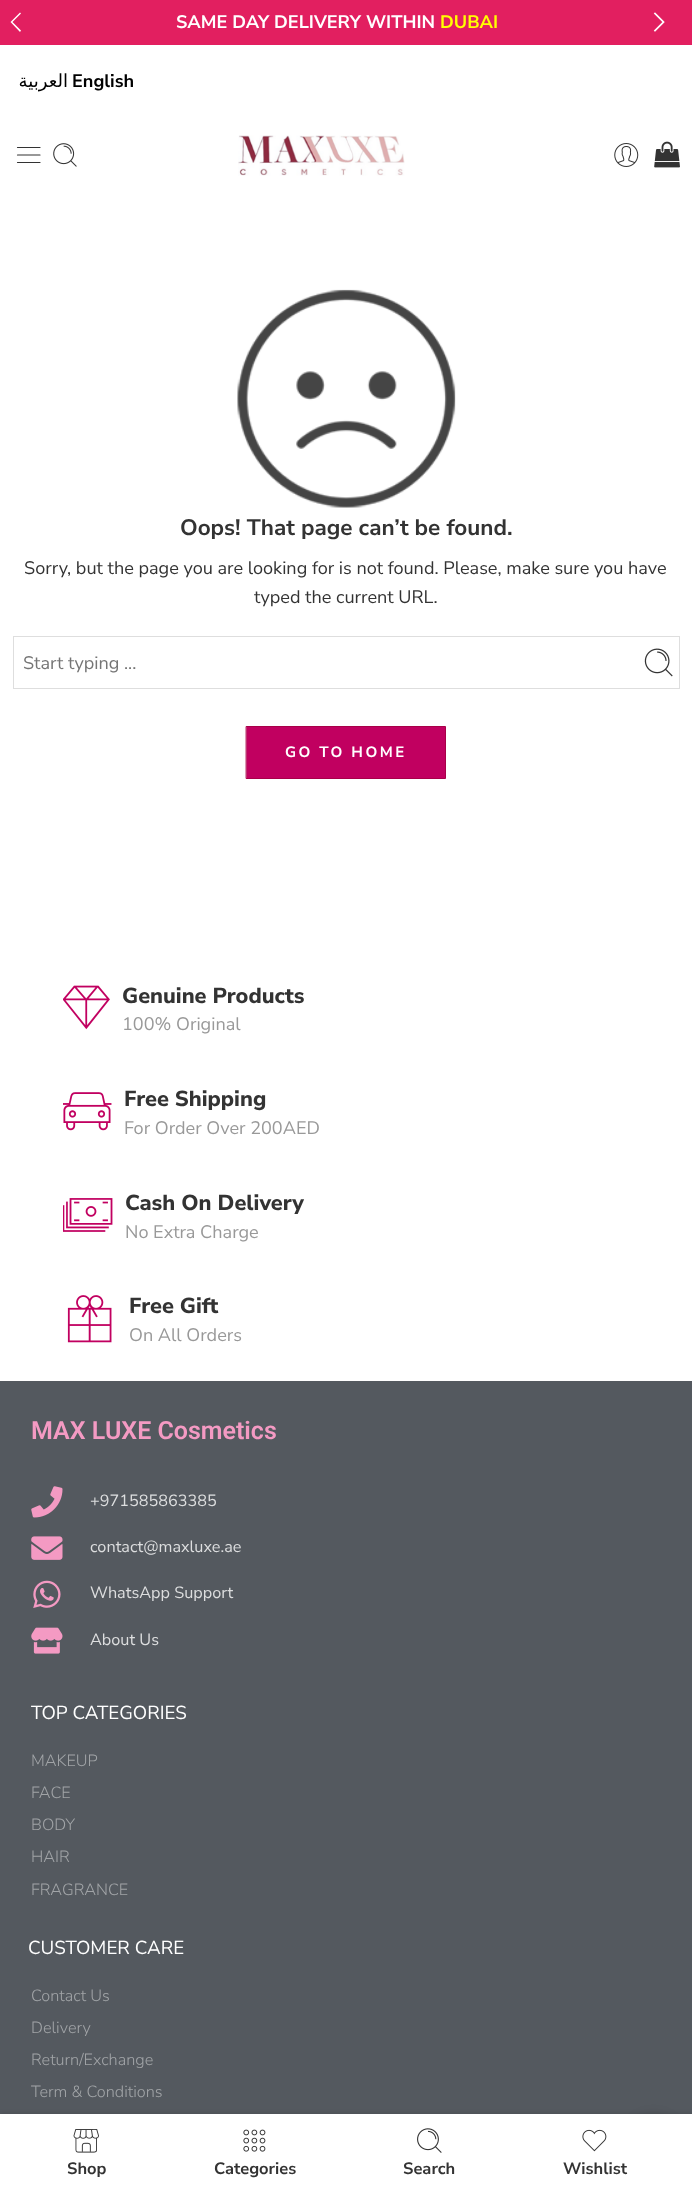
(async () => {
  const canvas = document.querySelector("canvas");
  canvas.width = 692;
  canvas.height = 2190;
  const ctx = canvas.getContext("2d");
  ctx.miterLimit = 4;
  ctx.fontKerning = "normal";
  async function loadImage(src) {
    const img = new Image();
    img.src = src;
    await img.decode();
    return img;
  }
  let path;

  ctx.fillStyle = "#ffffff";
  ctx.fillRect(0, 0, 692, 2190);
  ctx.fillStyle = "#e21f60";
  ctx.fillRect(0, 0, 692, 45);
  ctx.fillStyle = "#ffffff";
  path = new Path2D("M20 12.5L10.5 22L20 32L21 30.5L12.5 22L21 13.5Z");
  ctx.fill(path);
  ctx.drawImage(await loadImage("img/1.png"), 653, 12, 12, 20);
  path = new Path2D("M17.5 155H40M17.5 147.5H40M17.5 162.5H40");
  ctx.strokeStyle = "#333333";
  ctx.lineWidth = 1.2;
  ctx.lineCap = "round";
  ctx.lineJoin = "round";
  ctx.stroke(path);
  ctx.drawImage(await loadImage("img/2.png"), 53, 143, 24, 24);
  ctx.drawImage(await loadImage("img/3.png"), 238, 135, 167, 41);
  ctx.drawImage(await loadImage("img/4.png"), 614, 143, 25, 24);
  ctx.drawImage(await loadImage("img/5.png"), 654, 141, 26, 27);
  ctx.drawImage(await loadImage("img/6.png"), 237, 289, 219, 219);
  ctx.strokeStyle = "#dedede";
  ctx.lineWidth = 1;
  ctx.lineJoin = "miter";
  ctx.strokeRect(13.5, 636.5, 666, 52);
  ctx.drawImage(await loadImage("img/7.png"), 644, 648, 29, 29);
  ctx.fillStyle = "#c10060";
  ctx.beginPath();
  ctx.rect(246.5, 726.5, 199, 52);
  ctx.fill();
  ctx.strokeStyle = "#a80048";
  ctx.stroke();
  ctx.drawImage(await loadImage("img/8.png"), 63, 985, 47, 45);
  ctx.drawImage(await loadImage("img/9.png"), 63, 1092, 49, 39);
  ctx.drawImage(await loadImage("img/10.png"), 63, 1198, 50, 34);
  ctx.drawImage(await loadImage("img/11.png"), 67, 1295, 45, 48);
  ctx.fillStyle = "#54595f";
  ctx.fillRect(0, 1381, 692, 733);
  ctx.drawImage(await loadImage("img/12.png"), 31, 1486, 32, 32);
  ctx.drawImage(await loadImage("img/13.png"), 31, 1536, 32, 24);
  ctx.drawImage(await loadImage("img/14.png"), 33, 1580, 28, 28);
  ctx.drawImage(await loadImage("img/15.png"), 31, 1627, 32, 27);
  ctx.fillStyle = "rgba(0, 0, 0, 0.1)";
  ctx.filter = "blur(2px)";
  ctx.beginPath();
  ctx.rect(0, 2113, 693, 76);
  ctx.fill();
  ctx.filter = "none";
  ctx.filter = "blur(6px)";
  ctx.beginPath();
  ctx.roundRect(624, 2115, 59, 59, 29.5);
  ctx.fill();
  ctx.filter = "none";
  ctx.fillStyle = "#ffffff";
  ctx.fillRect(0, 2114, 692, 76);
  ctx.drawImage(await loadImage("img/16.png"), 73, 2129, 26, 24);
  ctx.drawImage(await loadImage("img/17.png"), 243, 2129, 23, 23);
  ctx.drawImage(await loadImage("img/18.png"), 417, 2128, 25, 25);
  ctx.drawImage(await loadImage("img/19.png"), 582, 2129, 25, 23);
  ctx.font = "bold 18.1px Nunito Sans";
  ctx.fillText("SAME DAY DELIVERY WITHIN", 176, 28);
  ctx.fillStyle = "#ffff00";
  ctx.fillText("DUBAI", 440, 28);
  ctx.direction = "rtl";
  ctx.font = "18.1px DejaVu Sans";
  ctx.fillStyle = "#000000";
  ctx.fillText("العربية", 68, 87);
  ctx.direction = "ltr";
  ctx.font = "bold 18.1px Nunito Sans";
  ctx.fillText("English", 72, 87);
  ctx.font = "bold 22.5px Nunito Sans";
  ctx.fillStyle = "#333333";
  ctx.fillText("Oops! That page can’t be found.", 180, 535);
  ctx.font = "18.1px Nunito Sans";
  ctx.fillText("Sorry, but the page you are looking for is not found. Please, make sure you have", 24, 574);
  ctx.fillText("typed the current URL.", 254, 603);
  ctx.fillStyle = "#757575";
  ctx.fillText("Start typing ...", 23, 669);
  ctx.letterSpacing = "2.5px";
  ctx.font = "bold 15px Nunito Sans";
  ctx.fillStyle = "#ffffff";
  ctx.fillText("GO TO HOME", 285, 757);
  ctx.letterSpacing = "0px";
  ctx.font = "800 21.75px Nunito Sans";
  ctx.fillStyle = "#333333";
  ctx.fillText("Genuine Products", 122, 1003);
  ctx.font = "18.1px Nunito Sans";
  ctx.fillStyle = "#999999";
  ctx.fillText("100% Original", 122, 1030);
  ctx.font = "800 21.75px Nunito Sans";
  ctx.fillStyle = "#333333";
  ctx.fillText("Free Shipping", 124, 1106);
  ctx.font = "18.1px Nunito Sans";
  ctx.fillStyle = "#999999";
  ctx.fillText("For Order Over 200AED", 124, 1134);
  ctx.font = "800 21.75px Nunito Sans";
  ctx.fillStyle = "#333333";
  ctx.fillText("Cash On Delivery", 125, 1210);
  ctx.font = "18.1px Nunito Sans";
  ctx.fillStyle = "#999999";
  ctx.fillText("No Extra Charge", 125, 1238);
  ctx.font = "800 21.75px Nunito Sans";
  ctx.fillStyle = "#333333";
  ctx.fillText("Free Gift", 129, 1313);
  ctx.font = "18.1px Nunito Sans";
  ctx.fillStyle = "#999999";
  ctx.fillText("On All Orders", 129, 1341);
  ctx.font = "600 25px Roboto";
  ctx.fillStyle = "#f49ac3";
  ctx.fillText("MAX LUXE Cosmetics", 31, 1439);
  ctx.font = "16.25px Nunito Sans";
  ctx.fillStyle = "#dddedf";
  for (const [text, x, y] of [
    ["+971585863385", 90, 1506],
    ["contact@maxluxe.ae", 90, 1552],
    ["WhatsApp Support", 90, 1598],
    ["About Us", 90, 1645],
  ]) {
    ctx.fillText(text, x, y);
  }
  ctx.font = "18.75px Nunito Sans";
  ctx.fillStyle = "#ffffff";
  ctx.fillText("TOP CATEGORIES", 31, 1719);
  ctx.font = "300 16.25px Nunito Sans";
  ctx.fillStyle = "#a1a4a7";
  for (const [text, x, y] of [
    ["MAKEUP", 31, 1766],
    ["FACE", 31, 1798],
    ["BODY", 31, 1830],
    ["HAIR", 31, 1862],
    ["FRAGRANCE", 31, 1895],
  ]) {
    ctx.fillText(text, x, y);
  }
  ctx.font = "18.75px Nunito Sans";
  ctx.fillStyle = "#ffffff";
  ctx.fillText("CUSTOMER CARE", 28, 1954);
  ctx.font = "300 16.25px Nunito Sans";
  ctx.fillStyle = "#a1a4a7";
  for (const [text, x, y] of [
    ["Contact Us", 31, 2001],
    ["Delivery", 31, 2033],
    ["Return/Exchange", 31, 2065],
    ["Term & Conditions", 31, 2097],
  ]) {
    ctx.fillText(text, x, y);
  }
  ctx.font = "bold 16.5px Nunito Sans";
  ctx.fillStyle = "#333333";
  for (const [text, x, y] of [
    ["Shop", 67, 2174],
    ["Categories", 214, 2174],
    ["Search", 403, 2174],
    ["Wishlist", 563, 2174],
  ]) {
    ctx.fillText(text, x, y);
  }
})();
